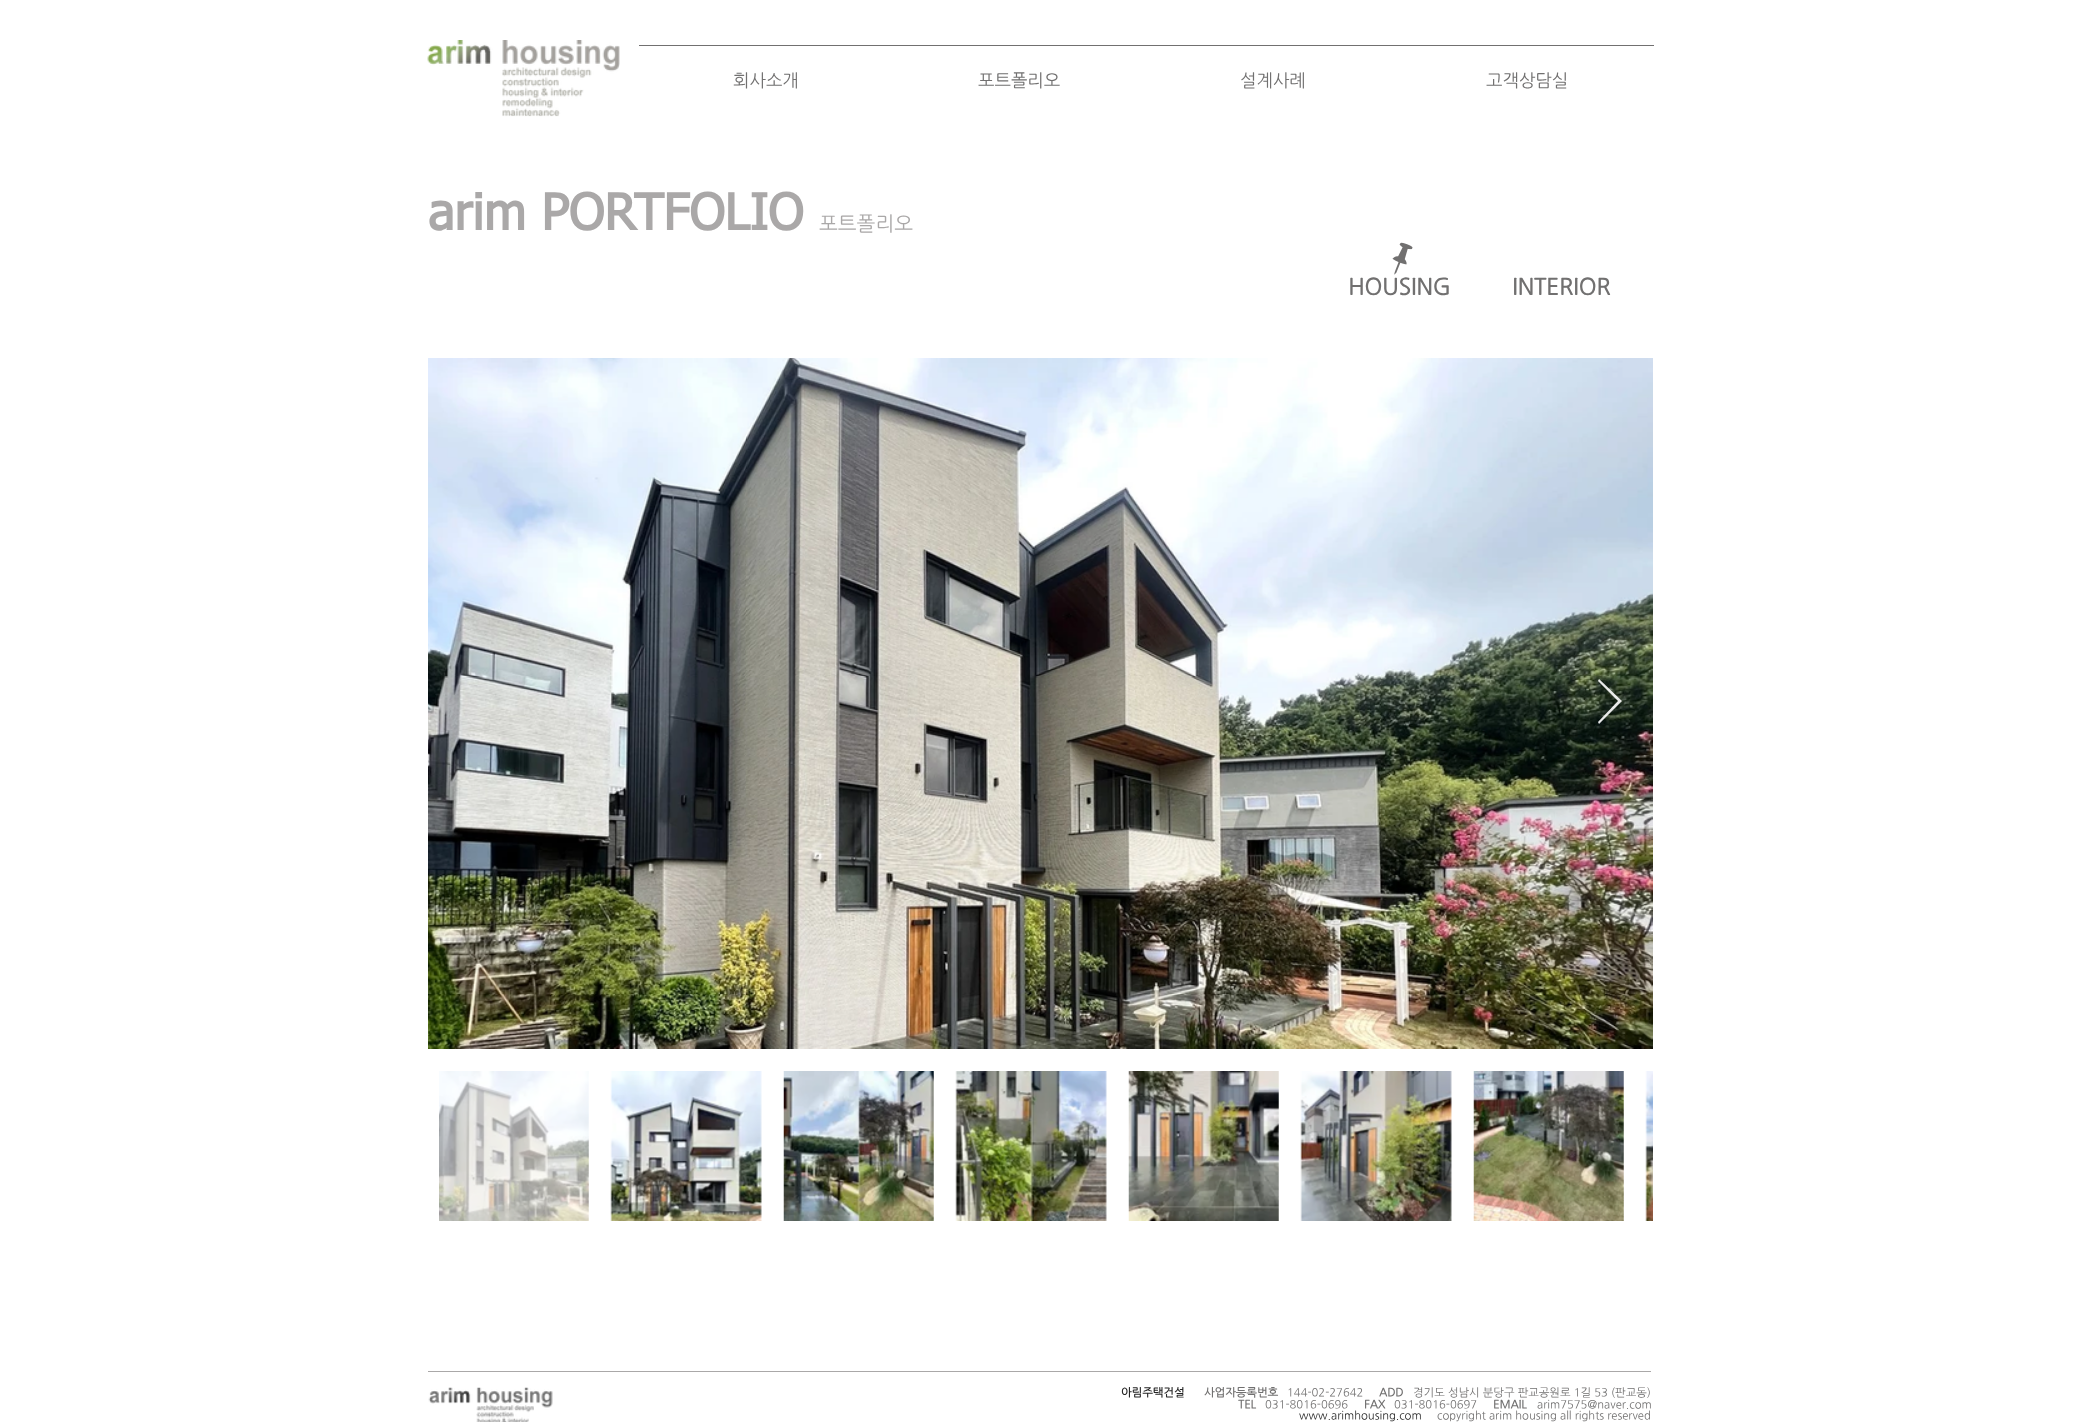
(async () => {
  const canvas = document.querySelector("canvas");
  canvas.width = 2079;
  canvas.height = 1422;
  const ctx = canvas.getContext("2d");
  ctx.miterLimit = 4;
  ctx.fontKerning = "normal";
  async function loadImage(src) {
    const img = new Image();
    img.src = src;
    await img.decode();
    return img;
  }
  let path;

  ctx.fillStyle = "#ffffff";
  ctx.fillRect(0, 0, 2079, 1422);
  ctx.drawImage(await loadImage("img/1.png"), 427, 40, 193, 77);
  ctx.fillStyle = "#717070";
  ctx.fillRect(639, 45, 1015, 1);
  ctx.drawImage(await loadImage("img/2.png"), 1392, 242, 21, 33);
  ctx.drawImage(await loadImage("img/3.png"), 428, 358, 1225, 691);
  ctx.fillStyle = "rgba(255, 255, 255, 0.9)";
  path = new Path2D("M1598 681L1599 679L1622 701L1599 724L1598 722L1618 701Z");
  ctx.fill(path);
  ctx.drawImage(await loadImage("img/4.png"), 439, 1071, 150, 150);
  ctx.drawImage(await loadImage("img/5.png"), 610, 1071, 152, 150);
  ctx.drawImage(await loadImage("img/6.png"), 783, 1071, 151, 150);
  ctx.drawImage(await loadImage("img/7.png"), 955, 1071, 152, 150);
  ctx.drawImage(await loadImage("img/8.png"), 1128, 1071, 151, 150);
  ctx.drawImage(await loadImage("img/9.png"), 1300, 1071, 152, 150);
  ctx.drawImage(await loadImage("img/10.png"), 1473, 1071, 151, 150);
  ctx.drawImage(await loadImage("img/11.png"), 1645, 1071, 8, 150);
  ctx.fillStyle = "#aaa8a8";
  ctx.fillRect(428, 1371, 1223, 1);
  ctx.drawImage(await loadImage("img/12.png"), 428, 1387, 125, 35);
  ctx.font = "17.5px NanumGothic";
  ctx.fillStyle = "#717070";
  for (const [text, x, y] of [
    ["회사소개", 733, 86],
    ["포트폴리오", 978, 86],
    ["설계사례", 1240, 86],
    ["고객상담실", 1486, 86],
  ]) {
    ctx.fillText(text, x, y);
  }
  ctx.font = "bold 50px tahoma";
  ctx.fillStyle = "#aaa8a8";
  ctx.fillText("arim PORTFOLIO", 428, 230);
  ctx.font = "20px NanumGothic";
  ctx.fillText("포트폴리오", 819, 230);
  ctx.font = "bold 22.5px NanumGothic";
  ctx.fillStyle = "#717070";
  ctx.fillText("HOUSING", 1348, 294);
  ctx.fillText("INTERIOR", 1512, 294);
  ctx.font = "bold 11.25px NanumGothic";
  ctx.fillStyle = "#252525";
  ctx.fillText("아림주택건설", 1121, 1396);
  ctx.fillStyle = "#717070";
  ctx.fillText("사업자등록번호", 1204, 1396);
  ctx.font = "11.25px NanumGothic";
  ctx.fillText("144-02-27642", 1287, 1396);
  ctx.font = "bold 11.25px NanumGothic";
  ctx.fillText("ADD", 1379, 1396);
  ctx.font = "11.25px NanumGothic";
  ctx.fillText("경기도 성남시 분당구 판교공원로 1길 53 (판교동)", 1413, 1396);
  ctx.font = "bold 11.25px NanumGothic";
  ctx.fillText("TEL", 1238, 1408);
  ctx.font = "11.25px NanumGothic";
  ctx.fillText("031-8016-0696", 1265, 1408);
  ctx.font = "bold 11.25px NanumGothic";
  ctx.fillText("FAX", 1364, 1408);
  ctx.font = "11.25px NanumGothic";
  ctx.fillText("031-8016-0697", 1394, 1408);
  ctx.font = "bold 11.25px NanumGothic";
  ctx.fillText("EMAIL", 1493, 1408);
  ctx.font = "11.25px NanumGothic";
  ctx.fillText("arim7575@naver.com", 1537, 1408);
  ctx.fillStyle = "#252525";
  ctx.fillText("www.arimhousing.com", 1299, 1419);
  ctx.fillStyle = "#717070";
  ctx.fillText("copyright arim housing all rights reserved", 1437, 1419);
})();
